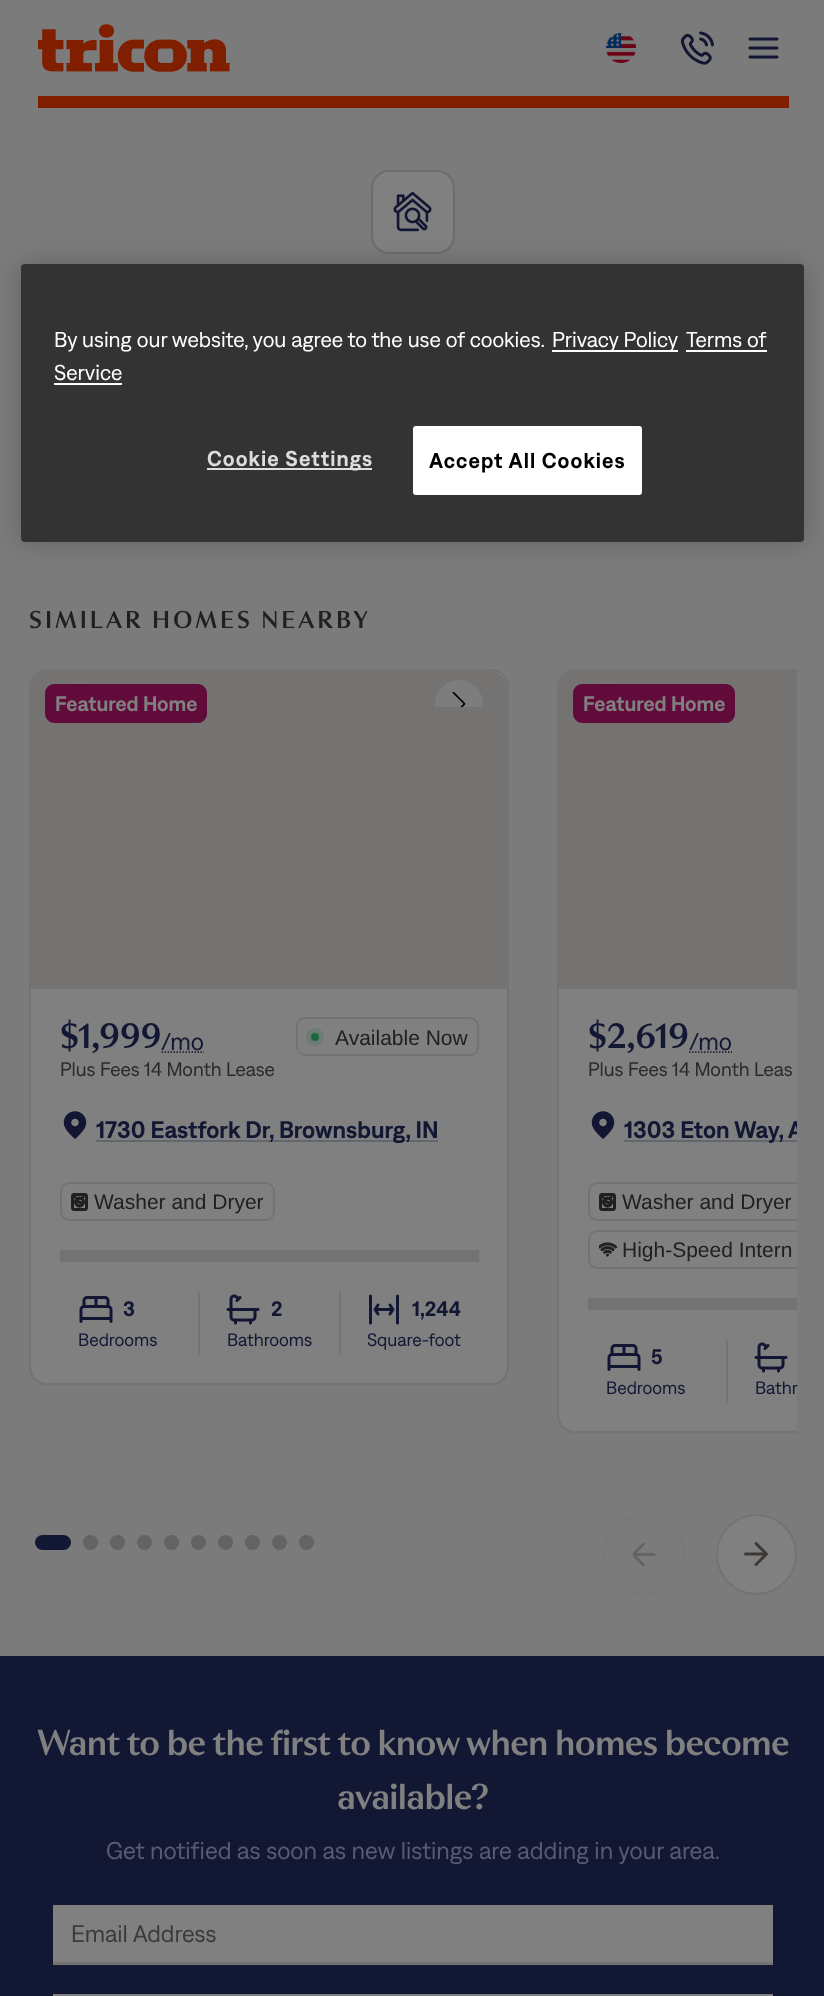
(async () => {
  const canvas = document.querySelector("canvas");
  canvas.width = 824;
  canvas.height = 1996;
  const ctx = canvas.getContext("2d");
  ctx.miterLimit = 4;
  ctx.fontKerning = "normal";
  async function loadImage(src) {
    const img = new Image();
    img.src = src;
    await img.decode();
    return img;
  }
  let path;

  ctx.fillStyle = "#7c7b7b";
  ctx.fillRect(0, 0, 824, 1996);
  ctx.fillStyle = "#808080";
  ctx.beginPath();
  ctx.roundRect(372, 171, 82, 82, 17);
  ctx.fill();
  ctx.strokeStyle = "#6b6c6d";
  ctx.lineWidth = 2;
  ctx.stroke();
  ctx.drawImage(await loadImage("img/5.png"), 393, 191, 39, 41);
  ctx.fillStyle = "rgba(0, 0, 0, 0.2)";
  ctx.filter = "blur(13.5px)";
  ctx.beginPath();
  ctx.roundRect(21, 264, 783, 278, 4);
  ctx.fill();
  ctx.filter = "none";
  ctx.fillStyle = "#333333";
  ctx.beginPath();
  ctx.roundRect(21, 264, 783, 278, 4);
  ctx.fill();
  for (const [x, y, w, h, color] of [
    [552, 350, 126, 2, "#ffffff"],
    [686, 350, 81, 2, "#ffffff"],
    [54, 383, 68, 2, "#ffffff"],
    [207, 468, 165, 2, "#dddddd"],
  ]) {
    ctx.fillStyle = color;
    ctx.fillRect(x, y, w, h);
  }
  ctx.fillStyle = "#ffffff";
  ctx.beginPath();
  ctx.roundRect(414, 427, 227, 67, 2);
  ctx.fill();
  ctx.strokeStyle = "#ffffff";
  ctx.stroke();
  ctx.fillStyle = "#801e00";
  ctx.fillRect(38, 96, 751, 12);
  ctx.drawImage(await loadImage("img/1.png"), 38, 24, 192, 48);
  ctx.drawImage(await loadImage("img/2.png"), 606, 33, 30, 30);
  ctx.drawImage(await loadImage("img/3.png"), 680, 31, 34, 34);
  ctx.drawImage(await loadImage("img/4.png"), 748, 37, 31, 22);
  ctx.fillStyle = "#808080";
  ctx.beginPath();
  ctx.roundRect(30, 670, 478, 714, 17);
  ctx.fill();
  ctx.strokeStyle = "#747372";
  ctx.stroke();
  ctx.fillStyle = "#747372";
  ctx.beginPath();
  ctx.roundRect(30, 671, 477, 318, [18, 18, 0, 0]);
  ctx.fill();
  ctx.save();
  ctx.beginPath();
  ctx.rect(30, 671, 477, 36);
  ctx.clip();
  ctx.fillStyle = "#777676";
  ctx.beginPath();
  ctx.arc(78, 704, 24, 0, Math.PI * 2);
  ctx.fill();
  ctx.fillStyle = "#7d7d7d";
  ctx.beginPath();
  ctx.arc(459, 704, 24, 0, Math.PI * 2);
  ctx.fill();
  ctx.restore();
  ctx.drawImage(await loadImage("img/6.png"), 452, 692, 14, 15);
  ctx.fillStyle = "#610b3a";
  ctx.beginPath();
  ctx.roundRect(46, 685, 160, 37, 8);
  ctx.fill();
  ctx.strokeStyle = "#610b3a";
  ctx.stroke();
  path = new Path2D("M161.5 1052H204");
  ctx.strokeStyle = "#121733";
  ctx.lineWidth = 1.5;
  ctx.setLineDash([1.5, 1.5]);
  ctx.stroke(path);
  ctx.beginPath();
  ctx.roundRect(297, 1018, 181, 37, 8);
  ctx.strokeStyle = "#747372";
  ctx.lineWidth = 2;
  ctx.setLineDash([]);
  ctx.stroke();
  ctx.fillStyle = "#1e6640";
  ctx.beginPath();
  ctx.arc(315, 1037, 6.5, 0, Math.PI * 2);
  ctx.fill();
  ctx.strokeStyle = "#6c7b73";
  ctx.lineWidth = 5;
  ctx.stroke();
  ctx.drawImage(await loadImage("img/7.png"), 63, 1111, 24, 28);
  ctx.fillStyle = "#64666d";
  ctx.fillRect(96, 1140, 342, 2);
  ctx.beginPath();
  ctx.roundRect(61, 1183, 213, 37, 8);
  ctx.strokeStyle = "#747372";
  ctx.lineWidth = 2;
  ctx.stroke();
  ctx.drawImage(await loadImage("img/8.png"), 71, 1193, 17, 18);
  ctx.fillStyle = "#747372";
  ctx.fillRect(60, 1250, 419, 12);
  ctx.drawImage(await loadImage("img/9.png"), 79, 1296, 34, 27);
  ctx.fillRect(198, 1292, 2, 63);
  ctx.drawImage(await loadImage("img/10.png"), 226, 1294, 34, 31);
  ctx.fillRect(339, 1292, 2, 63);
  path = new Path2D("M375 1309.5H393M375 1309.5L378 1305M375 1309.5L378 1314M393 1309.5L390 1305M393 1309.5L390 1314M397.5 1323V1296M370.5 1323V1296");
  ctx.strokeStyle = "#121733";
  ctx.lineWidth = 3;
  ctx.lineCap = "round";
  ctx.lineJoin = "round";
  ctx.stroke(path);
  ctx.fillStyle = "#808080";
  ctx.beginPath();
  ctx.roundRect(557, 669, 240, 764, [18, 0, 0, 18]);
  ctx.fill();
  ctx.save();
  ctx.beginPath();
  ctx.rect(29, 663, 768, 932);
  ctx.clip();
  ctx.beginPath();
  ctx.roundRect(558, 670, 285, 762, 17);
  ctx.strokeStyle = "#747372";
  ctx.lineWidth = 2;
  ctx.lineJoin = "miter";
  ctx.stroke();
  ctx.restore();
  ctx.fillStyle = "#747372";
  ctx.beginPath();
  ctx.roundRect(558, 671, 239, 318, [18, 0, 0, 0]);
  ctx.fill();
  ctx.save();
  ctx.beginPath();
  ctx.rect(558, 671, 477, 36);
  ctx.clip();
  ctx.fillStyle = "#777676";
  ctx.beginPath();
  ctx.arc(606, 704, 24, 0, Math.PI * 2);
  ctx.fill();
  ctx.restore();
  ctx.fillStyle = "#610b3a";
  ctx.beginPath();
  ctx.roundRect(574, 685, 160, 37, 8);
  ctx.fill();
  ctx.strokeStyle = "#610b3a";
  ctx.lineWidth = 2;
  ctx.lineJoin = "miter";
  ctx.stroke();
  path = new Path2D("M689 1052H732");
  ctx.strokeStyle = "#121733";
  ctx.lineWidth = 1.5;
  ctx.lineCap = "butt";
  ctx.setLineDash([1.5, 1.5]);
  ctx.stroke(path);
  ctx.drawImage(await loadImage("img/7.png"), 591, 1111, 24, 28);
  ctx.fillStyle = "#64666d";
  ctx.fillRect(624, 1140, 173, 2);
  ctx.save();
  ctx.beginPath();
  ctx.rect(29, 663, 768, 932);
  ctx.clip();
  ctx.beginPath();
  ctx.roundRect(589, 1183, 213, 37, 8);
  ctx.strokeStyle = "#747372";
  ctx.lineWidth = 2;
  ctx.setLineDash([]);
  ctx.stroke();
  ctx.restore();
  ctx.drawImage(await loadImage("img/8.png"), 599, 1193, 17, 18);
  ctx.save();
  ctx.beginPath();
  ctx.rect(29, 663, 768, 932);
  ctx.clip();
  ctx.beginPath();
  ctx.roundRect(589, 1231, 231, 37, 8);
  ctx.strokeStyle = "#747372";
  ctx.lineWidth = 2;
  ctx.setLineDash([]);
  ctx.stroke();
  ctx.restore();
  ctx.drawImage(await loadImage("img/11.png"), 599, 1242, 18, 15);
  ctx.fillStyle = "#747372";
  ctx.fillRect(588, 1298, 209, 12);
  ctx.drawImage(await loadImage("img/9.png"), 607, 1344, 34, 27);
  ctx.fillRect(726, 1340, 2, 63);
  ctx.drawImage(await loadImage("img/10.png"), 754, 1342, 34, 31);
  ctx.fillStyle = "#121733";
  ctx.beginPath();
  ctx.roundRect(35, 1535, 36, 15, 7.5);
  ctx.fill();
  ctx.fillStyle = "#646362";
  ctx.beginPath();
  ctx.arc(90.5, 1542.5, 7.5, 0, Math.PI * 2);
  ctx.fill();
  ctx.beginPath();
  ctx.arc(117.5, 1542.5, 7.5, 0, Math.PI * 2);
  ctx.fill();
  ctx.beginPath();
  ctx.arc(144.5, 1542.5, 7.5, 0, Math.PI * 2);
  ctx.fill();
  ctx.beginPath();
  ctx.arc(171.5, 1542.5, 7.5, 0, Math.PI * 2);
  ctx.fill();
  ctx.beginPath();
  ctx.arc(198.5, 1542.5, 7.5, 0, Math.PI * 2);
  ctx.fill();
  ctx.beginPath();
  ctx.arc(225.5, 1542.5, 7.5, 0, Math.PI * 2);
  ctx.fill();
  ctx.beginPath();
  ctx.arc(252.5, 1542.5, 7.5, 0, Math.PI * 2);
  ctx.fill();
  ctx.beginPath();
  ctx.arc(279.5, 1542.5, 7.5, 0, Math.PI * 2);
  ctx.fill();
  ctx.beginPath();
  ctx.arc(306.5, 1542.5, 7.5, 0, Math.PI * 2);
  ctx.fill();
  ctx.save();
  ctx.beginPath();
  ctx.rect(633, 1542, 24, 24);
  ctx.clip();
  path = new Path2D("M654 1554.5H633M633 1554.5L643.5 1565M633 1554.5L643.5 1544");
  ctx.strokeStyle = "#666463";
  ctx.lineWidth = 3;
  ctx.lineCap = "round";
  ctx.lineJoin = "round";
  ctx.setLineDash([]);
  ctx.stroke(path);
  ctx.restore();
  path = new Path2D("M644.5 1594C622.5 1594 604.5 1576 604.5 1554.5C604.5 1532.5 622.5 1514.5 644.5 1514.5C666.5 1514.5 684 1532.5 684 1554.5C684 1576 666.5 1594 644.5 1594Z");
  ctx.strokeStyle = "#797878";
  ctx.setLineDash([]);
  ctx.stroke(path);
  ctx.fillStyle = "#808080";
  ctx.beginPath();
  ctx.arc(756.5, 1554.5, 40.5, 0, Math.PI * 2);
  ctx.fill();
  path = new Path2D("M745.5 1554H766.5M766.5 1554L756 1543.5M766.5 1554L756 1564.5");
  ctx.strokeStyle = "#3d3936";
  ctx.lineWidth = 3;
  ctx.lineCap = "round";
  ctx.lineJoin = "round";
  ctx.stroke(path);
  ctx.beginPath();
  ctx.arc(756.5, 1554.5, 39.5, 0, Math.PI * 2);
  ctx.strokeStyle = "#747372";
  ctx.lineWidth = 2;
  ctx.stroke();
  for (const [x, y, w, h, color] of [
    [0, 1656, 824, 340, "#121733"],
    [53, 1905, 720, 57, "#808080"],
    [53, 1962, 720, 3, "#747372"],
    [53, 1994, 720, 2, "#808080"],
  ]) {
    ctx.fillStyle = color;
    ctx.fillRect(x, y, w, h);
  }
  ctx.font = "21.6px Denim";
  ctx.fillStyle = "#ffffff";
  for (const [text, x, y] of [
    ["By using our website, you agree to the use of cookies.", 54, 347],
    ["Privacy Policy", 552, 347],
    ["Terms of", 686, 347],
    ["Service", 54, 380],
  ]) {
    ctx.fillText(text, x, y);
  }
  ctx.letterSpacing = "1.1px";
  ctx.font = "600 21.6px Denim";
  ctx.fillStyle = "#dddddd";
  ctx.fillText("Cookie Settings", 207, 466);
  ctx.fillStyle = "#000000";
  ctx.fillText("Accept All Cookies", 429, 468);
  ctx.letterSpacing = "3px";
  ctx.font = "500 24.3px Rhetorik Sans";
  ctx.fillStyle = "#22201e";
  ctx.fillText("SIMILAR HOMES NEARBY", 29, 628);
  ctx.letterSpacing = "0px";
  ctx.font = "600 21px Denim";
  ctx.fillStyle = "#808080";
  ctx.fillText("Featured Home", 55, 711);
  ctx.font = "500 36px Rhetorik Sans";
  ctx.fillStyle = "#121733";
  ctx.fillText("$1,999", 60, 1048);
  ctx.font = "24.3px Denim";
  ctx.fillText("/mo", 161, 1050);
  ctx.font = "19.5px Denim";
  ctx.fillStyle = "#2c2a27";
  ctx.fillText("Plus Fees 14 Month Lease", 60, 1076);
  ctx.font = "21px Liberation Sans";
  ctx.fillStyle = "#22201e";
  ctx.fillText("Available Now", 335, 1045);
  ctx.font = "600 24px Denim";
  ctx.fillStyle = "#121733";
  ctx.fillText("1730 Eastfork Dr, Brownsburg, IN", 96, 1138);
  ctx.font = "21px Liberation Sans";
  ctx.fillStyle = "#22201e";
  ctx.fillText("Washer and Dryer", 94, 1209);
  ctx.font = "600 21px Denim";
  ctx.fillStyle = "#121733";
  ctx.fillText("3", 123, 1316);
  ctx.font = "18px Denim";
  ctx.fillText("Bedrooms", 78, 1346);
  ctx.font = "600 21px Denim";
  ctx.fillText("2", 271, 1316);
  ctx.font = "18px Denim";
  ctx.fillText("Bathrooms", 227, 1346);
  ctx.font = "600 21px Denim";
  ctx.fillText("1,244", 412, 1316);
  ctx.font = "18px Denim";
  ctx.fillText("Square-foot", 367, 1346);
  ctx.font = "600 21px Denim";
  ctx.fillStyle = "#808080";
  ctx.fillText("Featured Home", 583, 711);
  ctx.font = "500 36px Rhetorik Sans";
  ctx.fillStyle = "#121733";
  ctx.fillText("$2,619", 588, 1048);
  ctx.font = "24.3px Denim";
  ctx.fillText("/mo", 689, 1050);
  ctx.font = "19.5px Denim";
  ctx.fillStyle = "#2c2a27";
  ctx.fillText("Plus Fees 14 Month Leas", 588, 1076);
  ctx.save();
  ctx.beginPath();
  ctx.rect(624, 1115, 173, 30);
  ctx.clip();
  ctx.font = "600 24px Denim";
  ctx.fillStyle = "#121733";
  ctx.fillText("1303 Eton Way, A", 624, 1138);
  ctx.restore();
  ctx.font = "21px Liberation Sans";
  ctx.fillStyle = "#22201e";
  ctx.fillText("Washer and Dryer", 622, 1209);
  ctx.fillText("High-Speed Intern", 622, 1257);
  ctx.font = "600 21px Denim";
  ctx.fillStyle = "#121733";
  ctx.fillText("5", 651, 1364);
  ctx.font = "18px Denim";
  ctx.fillText("Bedrooms", 606, 1394);
  ctx.fillText("Bathr", 755, 1394);
  ctx.letterSpacing = "-0.7px";
  ctx.font = "500 36px Rhetorik Sans";
  ctx.fillStyle = "#808080";
  ctx.fillText("Want to be the first to know when homes become", 37, 1755);
  ctx.fillText("available?", 337, 1809);
  ctx.letterSpacing = "0px";
  ctx.font = "24.3px Denim";
  ctx.fillStyle = "#575c72";
  ctx.fillText("Get notified as soon as new listings are adding in your area.", 106, 1859);
  ctx.font = "24px Denim";
  ctx.fillStyle = "#3b3b3b";
  ctx.fillText("Email Address", 71, 1942);
})();
